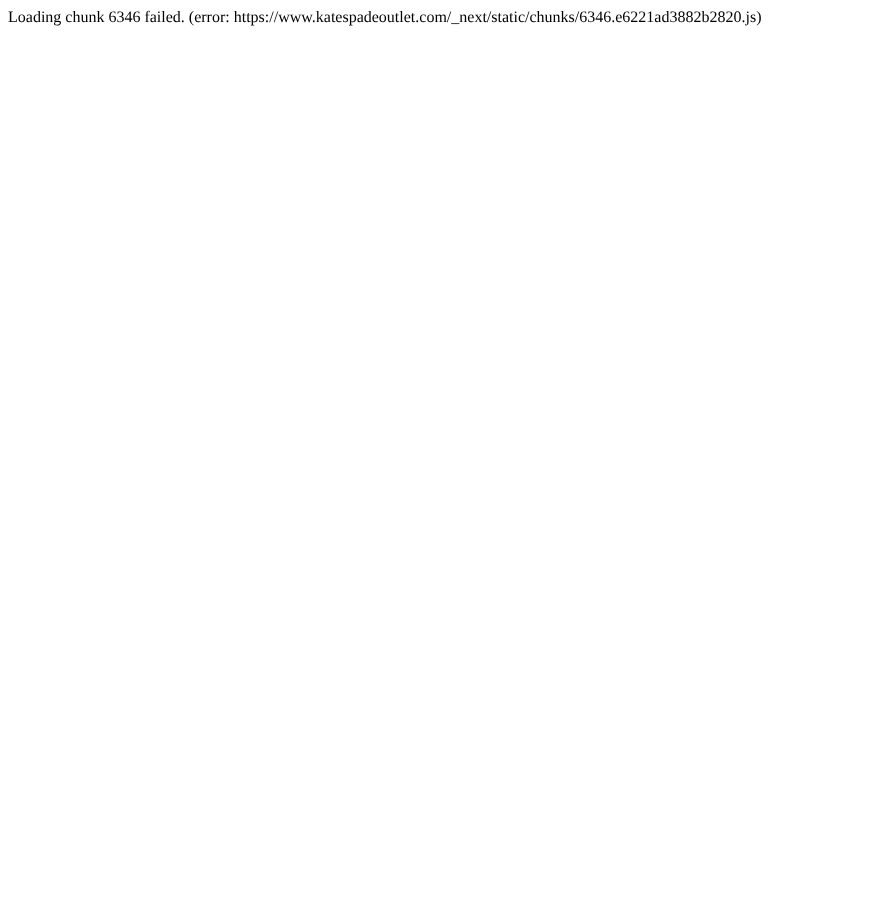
(async () => {
  const canvas = document.querySelector("canvas");
  canvas.width = 890;
  canvas.height = 907;
  const ctx = canvas.getContext("2d");
  ctx.miterLimit = 4;
  ctx.fontKerning = "normal";

  ctx.fillStyle = "#ffffff";
  ctx.fillRect(0, 0, 890, 907);
  ctx.font = "16px Liberation Serif";
  ctx.fillStyle = "#000000";
  ctx.fillText("Loading chunk 6346 failed. (error: https://www.katespadeoutlet.com/_next/static/chunks/6346.e6221ad3882b2820.js)", 8, 22);
})();
